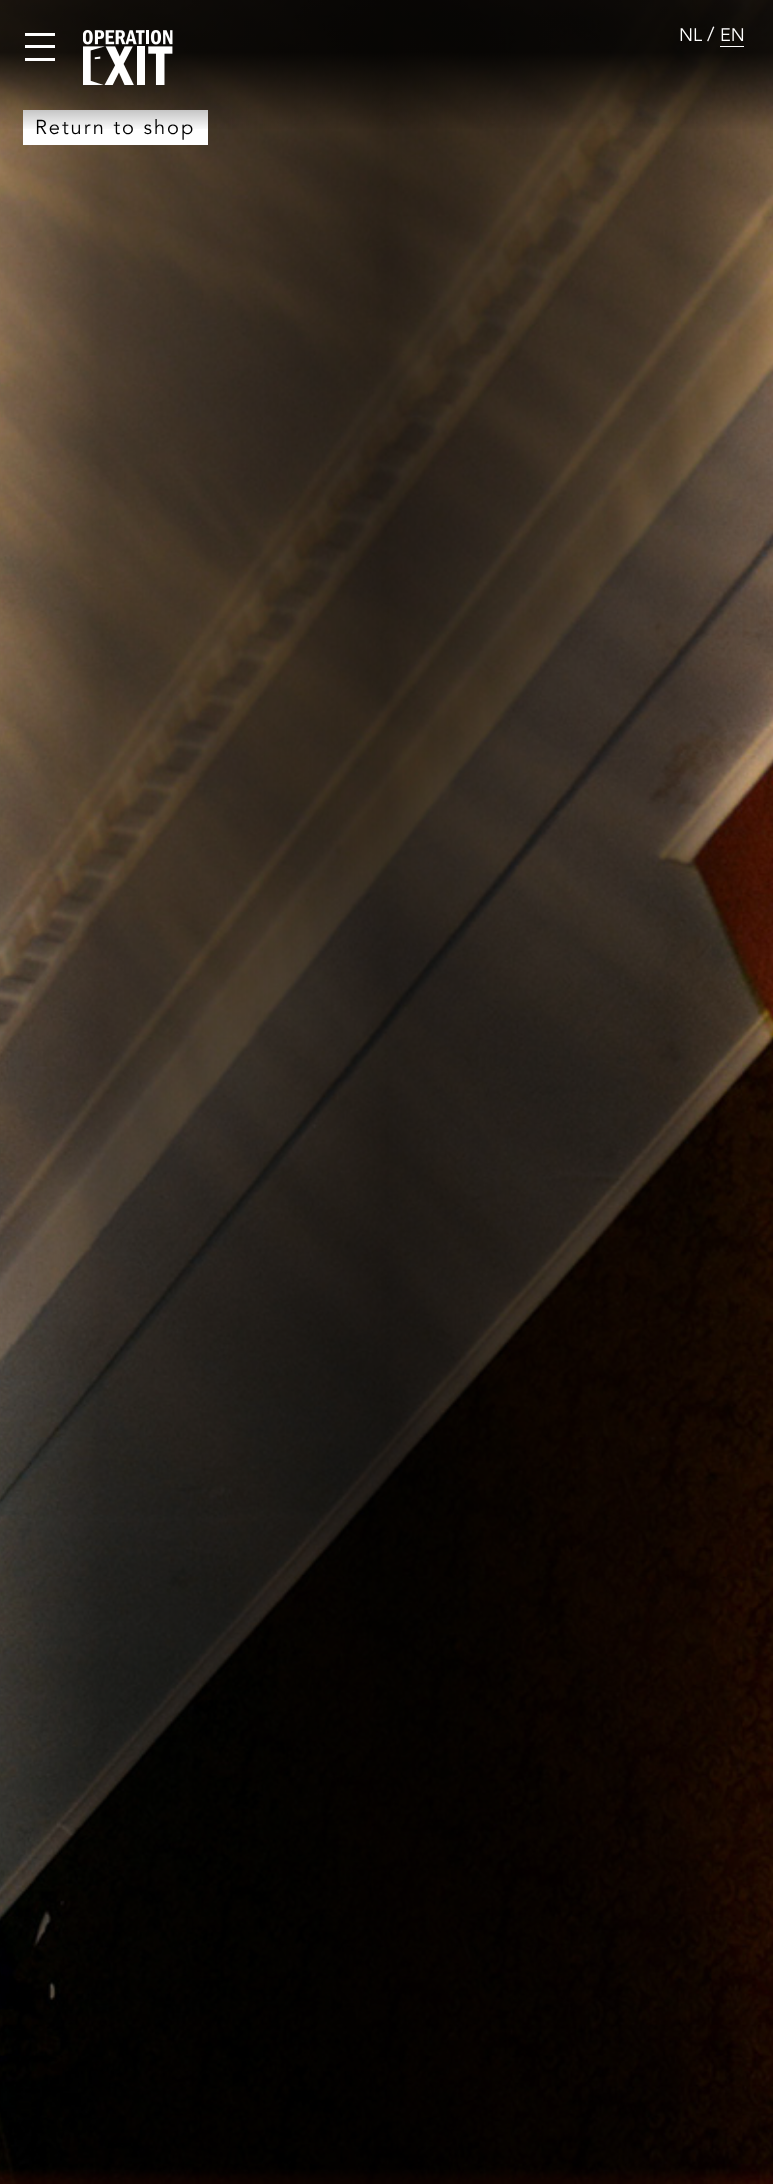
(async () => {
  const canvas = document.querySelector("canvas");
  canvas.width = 773;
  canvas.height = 2184;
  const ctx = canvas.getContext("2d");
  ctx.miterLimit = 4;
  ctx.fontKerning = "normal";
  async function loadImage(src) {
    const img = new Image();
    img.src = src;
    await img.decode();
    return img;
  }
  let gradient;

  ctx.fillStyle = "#ffffff";
  ctx.fillRect(0, 0, 773, 2184);
  ctx.drawImage(await loadImage("img/1.png"), 0, 0, 773, 2184);
  ctx.fillRect(23, 110, 185, 35);
  ctx.letterSpacing = "2px";
  ctx.font = "20px Avenir";
  ctx.fillStyle = "#000000";
  ctx.fillText("Return to shop", 35, 134);
  gradient = ctx.createLinearGradient(387, 0, 387, 131);
  gradient.addColorStop(0.4, "rgba(0, 0, 0, 0.85)");
  gradient.addColorStop(1, "rgba(0, 0, 0, 0)");
  ctx.fillStyle = gradient;
  ctx.fillRect(0, 0, 773, 129);
  for (const [x, y, w, h, color] of [
    [25, 58, 30, 3, "#ffffff"],
    [25, 45, 30, 3, "#ffffff"],
    [25, 33, 30, 3, "#ffffff"],
  ]) {
    ctx.fillStyle = color;
    ctx.fillRect(x, y, w, h);
  }
  ctx.drawImage(await loadImage("img/2.png"), 83, 30, 90, 55);
  ctx.letterSpacing = "0px";
  ctx.font = "18px Avenir";
  ctx.fillText("EN", 720, 41);
  ctx.fillRect(720, 46, 24, 1);
  ctx.font = "20px Avenir";
  ctx.fillText("/", 707, 41);
  ctx.font = "18px Avenir";
  ctx.fillText("NL", 679, 41);
})();
